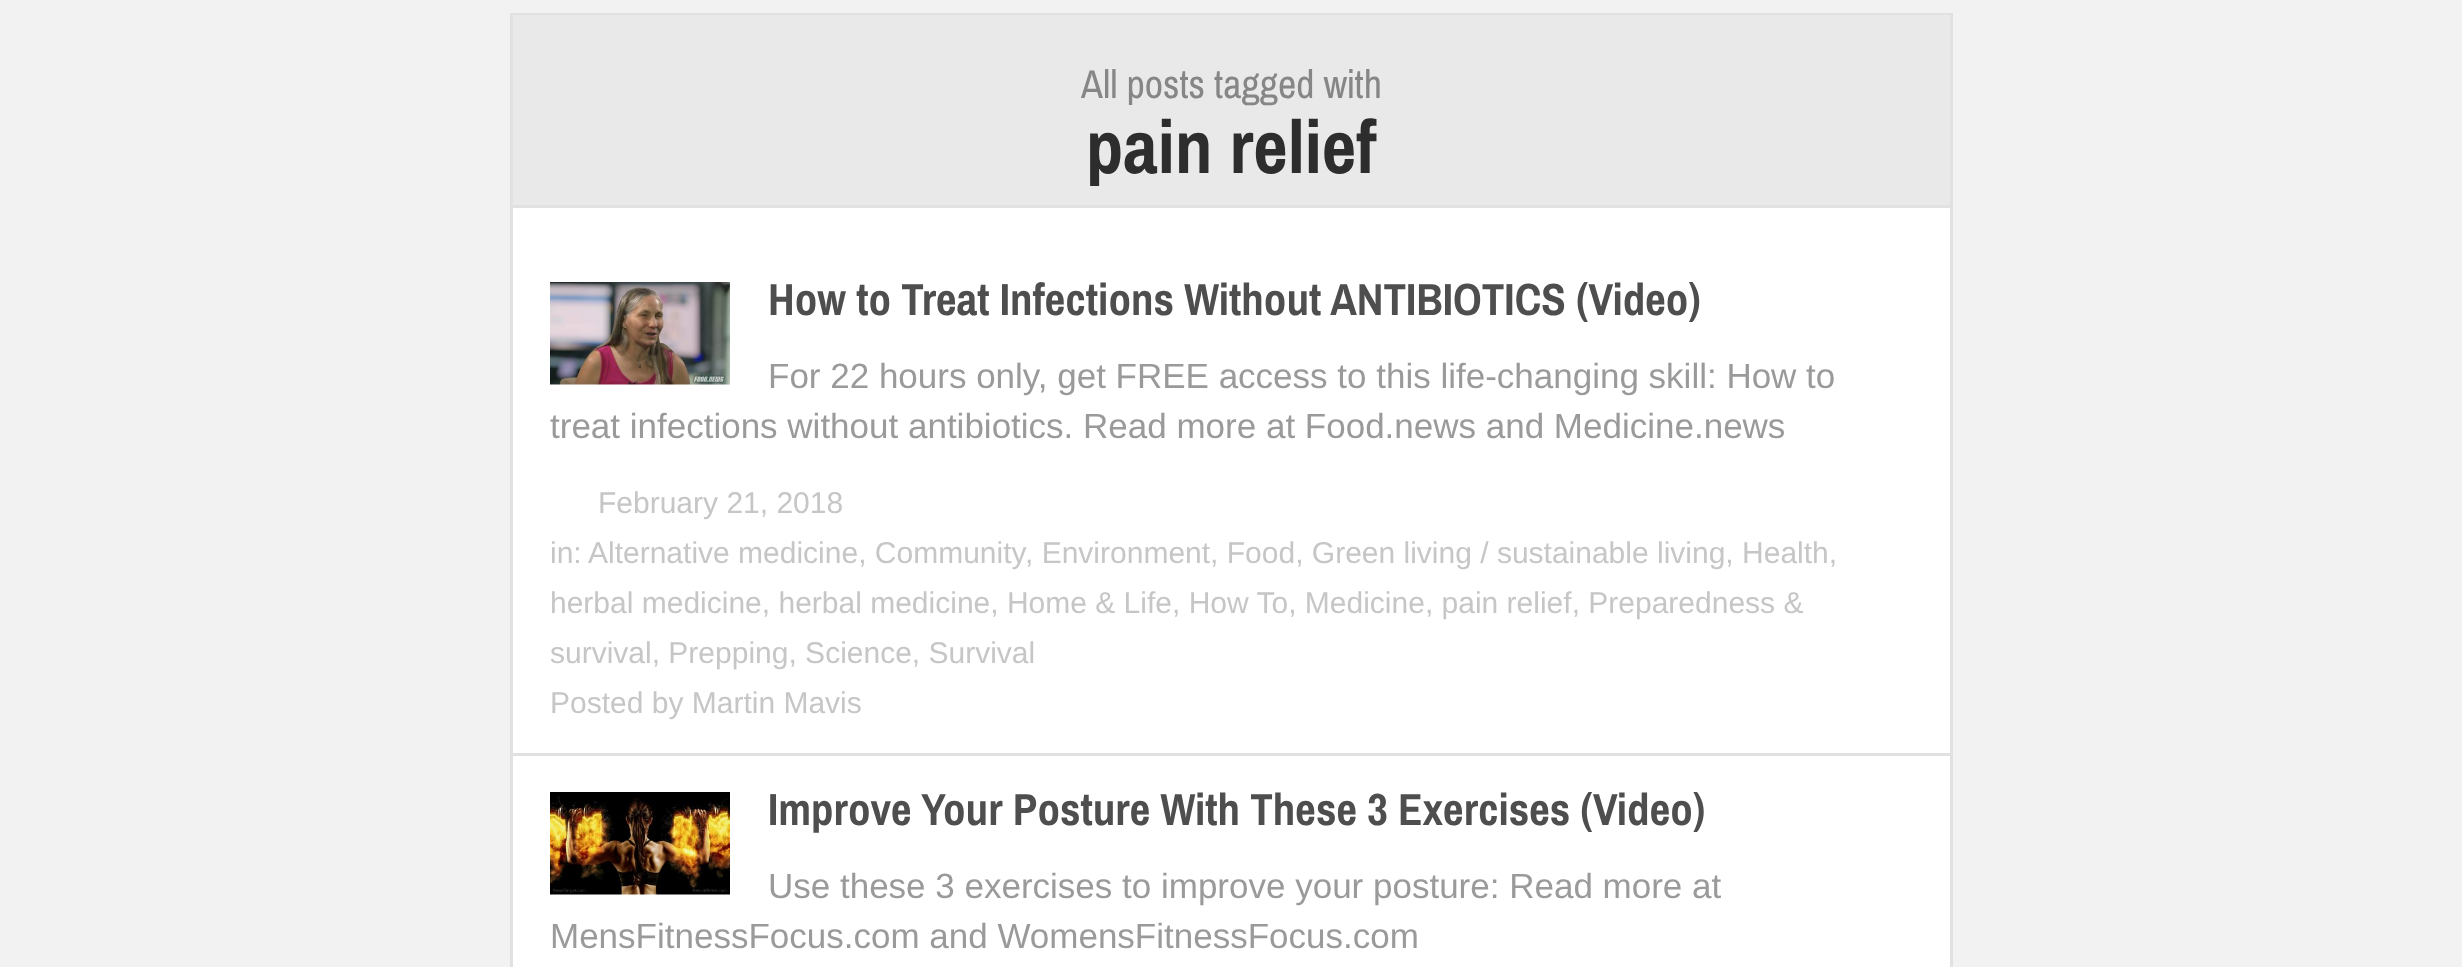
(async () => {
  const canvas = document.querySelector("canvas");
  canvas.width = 2462;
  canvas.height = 967;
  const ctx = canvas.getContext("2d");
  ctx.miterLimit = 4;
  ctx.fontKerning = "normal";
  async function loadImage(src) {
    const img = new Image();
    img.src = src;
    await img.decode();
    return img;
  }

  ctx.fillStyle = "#f2f2f2";
  ctx.fillRect(0, 0, 2462, 967);
  ctx.fillStyle = "#ffffff";
  ctx.fillRect(513, 208, 1437, 759);
  ctx.strokeStyle = "#e1e1e1";
  ctx.lineWidth = 3;
  ctx.strokeRect(511.5, 14.5, 1440, 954);
  for (const [x, y, w, h, color] of [
    [513, 15, 1437, 190, "#e9e9e9"],
    [513, 205, 1437, 3, "#e1e1e1"],
    [513, 753, 1437, 3, "#e1e1e1"],
  ]) {
    ctx.fillStyle = color;
    ctx.fillRect(x, y, w, h);
  }
  ctx.drawImage(await loadImage("img/1.png"), 550, 282, 180, 103);
  ctx.drawImage(await loadImage("img/2.png"), 550, 792, 180, 103);
  ctx.font = "40px Archivo Narrow";
  ctx.fillStyle = "#868686";
  ctx.fillText("All posts tagged with", 1081, 98);
  ctx.font = "bold 75px Archivo Narrow";
  ctx.fillStyle = "#2d2d2d";
  ctx.fillText("pain relief", 1086, 173);
  ctx.font = "bold 45px Archivo Narrow";
  ctx.fillStyle = "#4e4e4e";
  ctx.fillText("How to Treat Infections Without ANTIBIOTICS (Video)", 768, 315);
  ctx.font = "35px Liberation Sans";
  ctx.fillStyle = "#9a9a9a";
  ctx.fillText("For 22 hours only, get FREE access to this life-changing skill: How to", 768, 388);
  ctx.fillText("treat infections without antibiotics. Read more at Food.news and Medicine.news", 550, 438);
  ctx.font = "30px Liberation Sans";
  ctx.fillStyle = "#c6c6c6";
  for (const [text, x, y] of [
    ["February 21, 2018", 598, 513],
    ["in:", 550, 563],
    ["Alternative medicine, Community", 588, 563],
    [", Environment, Food, Green living / sustainable living, Health,", 1025, 563],
    ["herbal medicine, herbal medicine, Home & Life, How To, Medicine, pain relief, Preparedness &", 550, 613],
    ["survival, Prepping, Science, Survival", 550, 663],
    ["Posted by Martin Mavis", 550, 713],
  ]) {
    ctx.fillText(text, x, y);
  }
  ctx.font = "bold 45px Archivo Narrow";
  ctx.fillStyle = "#4e4e4e";
  ctx.fillText("Improve Your Posture With These 3 Exercises (Video)", 768, 825);
  ctx.font = "35px Liberation Sans";
  ctx.fillStyle = "#9a9a9a";
  ctx.fillText("Use these 3 exercises to improve your posture: Read more at", 768, 898);
  ctx.fillText("MensFitnessFocus.com and WomensFitnessFocus.com", 550, 948);
})();
